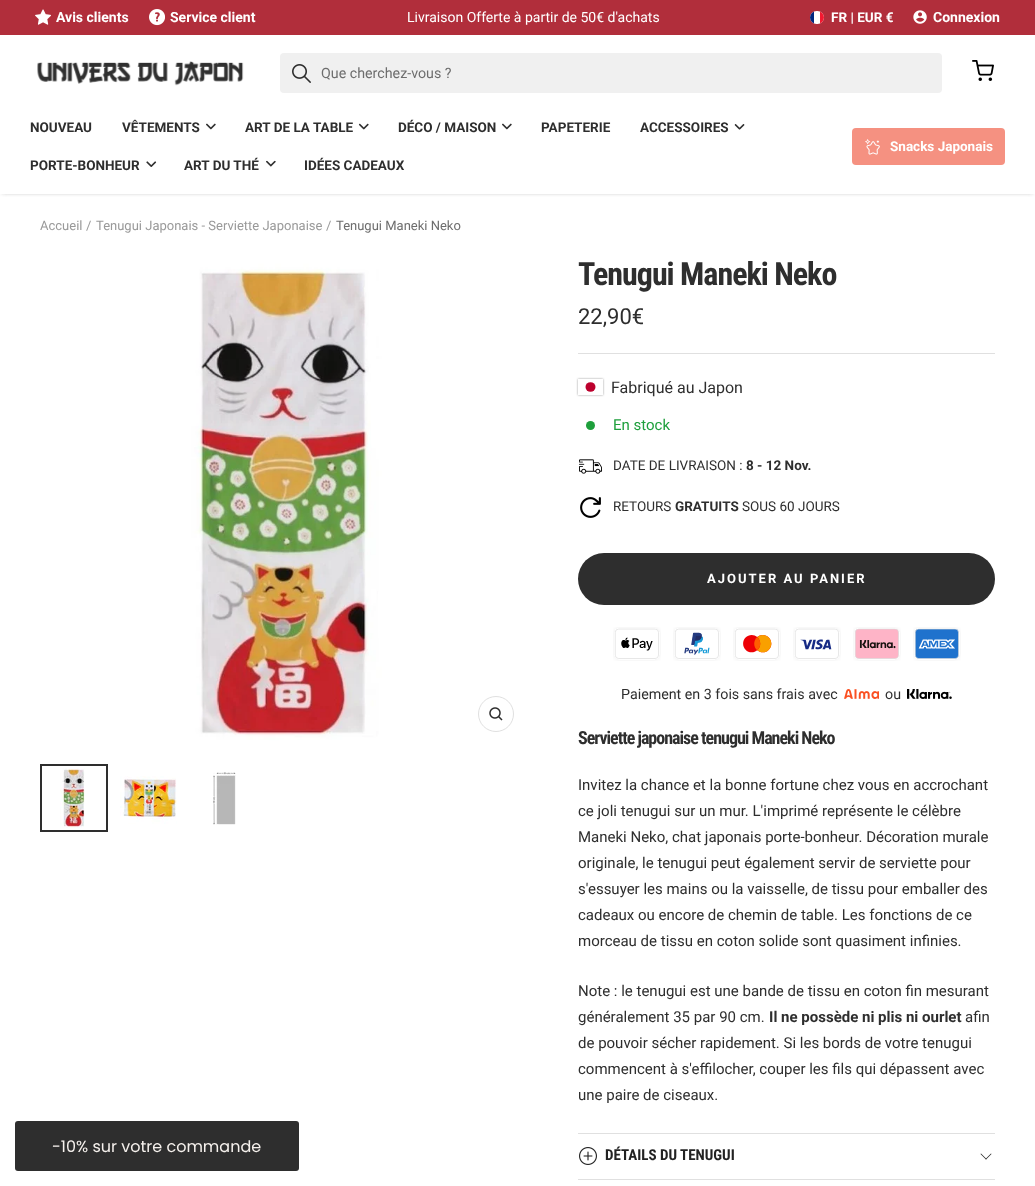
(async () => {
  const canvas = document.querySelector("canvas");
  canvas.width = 1035;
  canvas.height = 1186;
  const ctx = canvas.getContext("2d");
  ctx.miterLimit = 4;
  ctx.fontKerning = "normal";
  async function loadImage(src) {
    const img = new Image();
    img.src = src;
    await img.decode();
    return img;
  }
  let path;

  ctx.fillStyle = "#ffffff";
  ctx.fillRect(0, 0, 1035, 1186);
  ctx.save();
  ctx.beginPath();
  ctx.rect(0, 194, 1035, 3);
  ctx.clip();
  ctx.fillStyle = "#919191";
  ctx.filter = "blur(2.5px)";
  ctx.beginPath();
  ctx.rect(2, 2, 1031, 190);
  ctx.fill();
  ctx.filter = "none";
  ctx.restore();
  ctx.fillStyle = "#b12e3b";
  ctx.fillRect(0, 0, 1035, 35);
  ctx.drawImage(await loadImage("img/1.png"), 35, 9, 16, 16);
  ctx.drawImage(await loadImage("img/2.png"), 149, 9, 16, 17);
  ctx.fillStyle = "#ffffff";
  ctx.beginPath();
  ctx.roundRect(810, 11, 14, 13, 6.5);
  ctx.fill();
  ctx.save();
  ctx.beginPath();
  ctx.roundRect(810, 11, 14, 13, 6.5);
  ctx.clip();
  ctx.fillStyle = "#00267f";
  ctx.fillRect(810, 11, 4, 13);
  ctx.fillStyle = "#f31830";
  ctx.fillRect(820, 11, 4, 13);
  ctx.restore();
  ctx.drawImage(await loadImage("img/3.png"), 913, 10, 14, 14);
  ctx.drawImage(await loadImage("img/4.png"), 37, 61, 207, 25);
  ctx.fillStyle = "#f0f0f0";
  ctx.beginPath();
  ctx.roundRect(280, 53, 662, 40, 4);
  ctx.fill();
  ctx.drawImage(await loadImage("img/5.png"), 292, 64, 19, 19);
  ctx.drawImage(await loadImage("img/6.png"), 972, 60, 22, 21);
  ctx.drawImage(await loadImage("img/7.png"), 206, 123, 10, 7);
  ctx.drawImage(await loadImage("img/8.png"), 358, 123, 11, 7);
  ctx.drawImage(await loadImage("img/7.png"), 502, 123, 10, 7);
  ctx.drawImage(await loadImage("img/9.png"), 734, 124, 11, 6);
  ctx.drawImage(await loadImage("img/10.png"), 146, 161, 11, 6);
  ctx.drawImage(await loadImage("img/11.png"), 266, 160, 10, 7);
  ctx.fillStyle = "#f59181";
  ctx.beginPath();
  ctx.roundRect(852, 128, 153, 37, 4);
  ctx.fill();
  ctx.drawImage(await loadImage("img/12.png"), 865, 139, 15, 16);
  ctx.drawImage(await loadImage("img/13.png"), 40, 258, 490, 490);
  ctx.beginPath();
  ctx.arc(496, 714, 17.5, 0, Math.PI * 2);
  ctx.strokeStyle = "#e0e0e0";
  ctx.stroke();
  ctx.drawImage(await loadImage("img/14.png"), 489, 707, 14, 14);
  ctx.drawImage(await loadImage("img/15.png"), 60, 768, 25, 60);
  ctx.strokeStyle = "#2e2e2e";
  ctx.lineWidth = 2;
  ctx.strokeRect(41, 765, 66, 66);
  ctx.drawImage(await loadImage("img/16.png"), 120, 776, 57, 48);
  ctx.drawImage(await loadImage("img/17.png"), 213, 772, 23, 53);
  ctx.fillStyle = "#e0e0e0";
  ctx.fillRect(578, 353, 417, 1);
  ctx.drawImage(await loadImage("img/18.png"), 576, 377, 29, 20);
  ctx.fillStyle = "#1e9f3c";
  ctx.beginPath();
  ctx.arc(590.5, 425.5, 4.5, 0, Math.PI * 2);
  ctx.fill();
  ctx.drawImage(await loadImage("img/19.png"), 579, 459, 24, 15);
  ctx.drawImage(await loadImage("img/20.png"), 580, 497, 21, 21);
  ctx.fillStyle = "#2e2e2e";
  ctx.beginPath();
  ctx.roundRect(578, 553, 417, 52, 26);
  ctx.fill();
  ctx.drawImage(await loadImage("img/21.png"), 613, 627, 48, 34);
  ctx.drawImage(await loadImage("img/22.png"), 673, 627, 48, 34);
  ctx.drawImage(await loadImage("img/23.png"), 733, 627, 48, 34);
  ctx.drawImage(await loadImage("img/24.png"), 793, 627, 48, 34);
  ctx.drawImage(await loadImage("img/25.png"), 853, 627, 48, 34);
  ctx.drawImage(await loadImage("img/26.png"), 913, 627, 48, 34);
  ctx.drawImage(await loadImage("img/27.png"), 844, 689, 35, 10);
  ctx.drawImage(await loadImage("img/28.png"), 907, 689, 45, 10);
  ctx.fillStyle = "#e0e0e0";
  ctx.fillRect(578, 1133, 417, 1);
  ctx.drawImage(await loadImage("img/29.png"), 579, 1147, 18, 18);
  ctx.fillStyle = "#222222";
  path = new Path2D("M991 1153.5L991.5 1154L986 1159.5L985.5 1159Z");
  ctx.fill(path);
  path = new Path2D("M981 1153.5L986.5 1159L986 1159.5L980.5 1154Z");
  ctx.fill(path);
  ctx.fillStyle = "#e0e0e0";
  ctx.fillRect(578, 1179, 417, 1);
  ctx.fillStyle = "#2e2e2e";
  ctx.beginPath();
  ctx.roundRect(15, 1121, 284, 50, 3);
  ctx.fill();
  ctx.font = "bold 14px Roboto";
  ctx.fillStyle = "#ffffff";
  ctx.fillText("Avis clients", 56, 22);
  ctx.fillText("Service client", 170, 22);
  ctx.font = "14px Roboto";
  ctx.fillText("Livraison Offerte à partir de 50€ d'achats", 407, 22);
  ctx.font = "bold 13.5px Roboto";
  ctx.fillText("FR | EUR €", 831, 22);
  ctx.font = "bold 14px Roboto";
  ctx.fillText("Connexion", 933, 22);
  ctx.font = "14.25px Roboto";
  ctx.fillStyle = "#6d6d6d";
  ctx.fillText("Que cherchez-vous ?", 321, 78);
  ctx.font = "bold 13.5px Roboto";
  ctx.fillStyle = "#2e2e2e";
  for (const [text, x, y] of [
    ["NOUVEAU", 30, 132],
    ["VÊTEMENTS", 122, 132],
    ["ART DE LA TABLE", 245, 132],
    ["DÉCO / MAISON", 398, 132],
    ["PAPETERIE", 541, 132],
    ["ACCESSOIRES", 640, 132],
    ["PORTE-BONHEUR", 30, 170],
    ["ART DU THÉ", 184, 170],
    ["IDÉES CADEAUX", 304, 170],
  ]) {
    ctx.fillText(text, x, y);
  }
  ctx.fillStyle = "#ffffff";
  ctx.fillText("Snacks Japonais", 890, 151);
  ctx.font = "13px Roboto";
  ctx.fillStyle = "#999999";
  for (const [text, x, y] of [
    ["Accueil", 40, 230],
    ["/", 86, 230],
    ["Tenugui Japonais - Serviette Japonaise", 96, 230],
    ["/", 326, 230],
  ]) {
    ctx.fillText(text, x, y);
  }
  ctx.fillStyle = "#6d6d6d";
  ctx.fillText("Tenugui Maneki Neko", 336, 230);
  ctx.letterSpacing = "-1px";
  ctx.font = "bold 32px Roboto Condensed";
  ctx.fillStyle = "#2e2e2e";
  ctx.fillText("Tenugui Maneki Neko", 578, 285);
  ctx.letterSpacing = "0px";
  ctx.font = "22px Roboto";
  ctx.fillText("22,90€", 578, 324);
  ctx.font = "16px Roboto";
  ctx.fillText("Fabriqué au Japon", 611, 393);
  ctx.font = "15px Roboto";
  ctx.fillStyle = "#1e9f3c";
  ctx.fillText("En stock", 613, 430);
  ctx.font = "13.5px Roboto";
  ctx.fillStyle = "#2e2e2e";
  ctx.fillText("DATE DE LIVRAISON :", 613, 470);
  ctx.font = "bold 13.5px Roboto";
  ctx.fillText("8 - 12 Nov.", 746, 470);
  ctx.font = "13.5px Roboto";
  ctx.fillText("RETOURS", 613, 511);
  ctx.font = "bold 13.5px Roboto";
  ctx.fillText("GRATUITS", 675, 511);
  ctx.font = "13.5px Roboto";
  ctx.fillText("SOUS 60 JOURS", 742, 511);
  ctx.letterSpacing = "2px";
  ctx.font = "bold 13px Roboto";
  ctx.fillStyle = "#ffffff";
  ctx.fillText("AJOUTER AU PANIER", 707, 583);
  ctx.letterSpacing = "0px";
  ctx.font = "14.25px Roboto";
  ctx.fillStyle = "#2e2e2e";
  ctx.fillText("Paiement en 3 fois sans frais avec", 621, 699);
  ctx.fillText("ou", 885, 699);
  ctx.letterSpacing = "-1px";
  ctx.font = "bold 18px Roboto Condensed";
  ctx.fillText("Serviette japonaise tenugui Maneki Neko", 578, 744);
  ctx.letterSpacing = "0px";
  ctx.font = "15px Roboto";
  for (const [text, x, y] of [
    ["Invitez la chance et la bonne fortune chez vous en accrochant", 578, 790],
    ["ce joli tenugui sur un mur. L'imprimé représente le célèbre", 578, 816],
    ["Maneki Neko, chat japonais porte-bonheur. Décoration murale", 578, 842],
    ["originale, le tenugui peut également servir de serviette pour", 578, 868],
    ["s'essuyer les mains ou la vaisselle, de tissu pour emballer des", 578, 894],
    ["cadeaux ou encore de chemin de table. Les fonctions de ce", 578, 920],
    ["morceau de tissu en coton solide sont quasiment infinies.", 578, 946],
    ["Note : le tenugui est une bande de tissu en coton fin mesurant", 578, 996],
    ["généralement 35 par 90 cm.", 578, 1022],
  ]) {
    ctx.fillText(text, x, y);
  }
  ctx.font = "bold 15px Roboto";
  ctx.fillText("Il ne possède ni plis ni ourlet", 769, 1022);
  ctx.font = "15px Roboto";
  for (const [text, x, y] of [
    ["afin", 965, 1022],
    ["de pouvoir sécher rapidement. Si les bords de votre tenugui", 578, 1048],
    ["commencent à s'effilocher, couper les fils qui dépassent avec", 578, 1074],
    ["une paire de ciseaux.", 578, 1100],
  ]) {
    ctx.fillText(text, x, y);
  }
  ctx.font = "bold 15px Roboto Condensed";
  ctx.fillStyle = "#222222";
  ctx.fillText("DÉTAILS DU TENUGUI", 605, 1160);
  ctx.font = "16px Poppins";
  ctx.fillStyle = "#f6f1ed";
  ctx.fillText("-10% sur votre commande", 52, 1152);
})();
